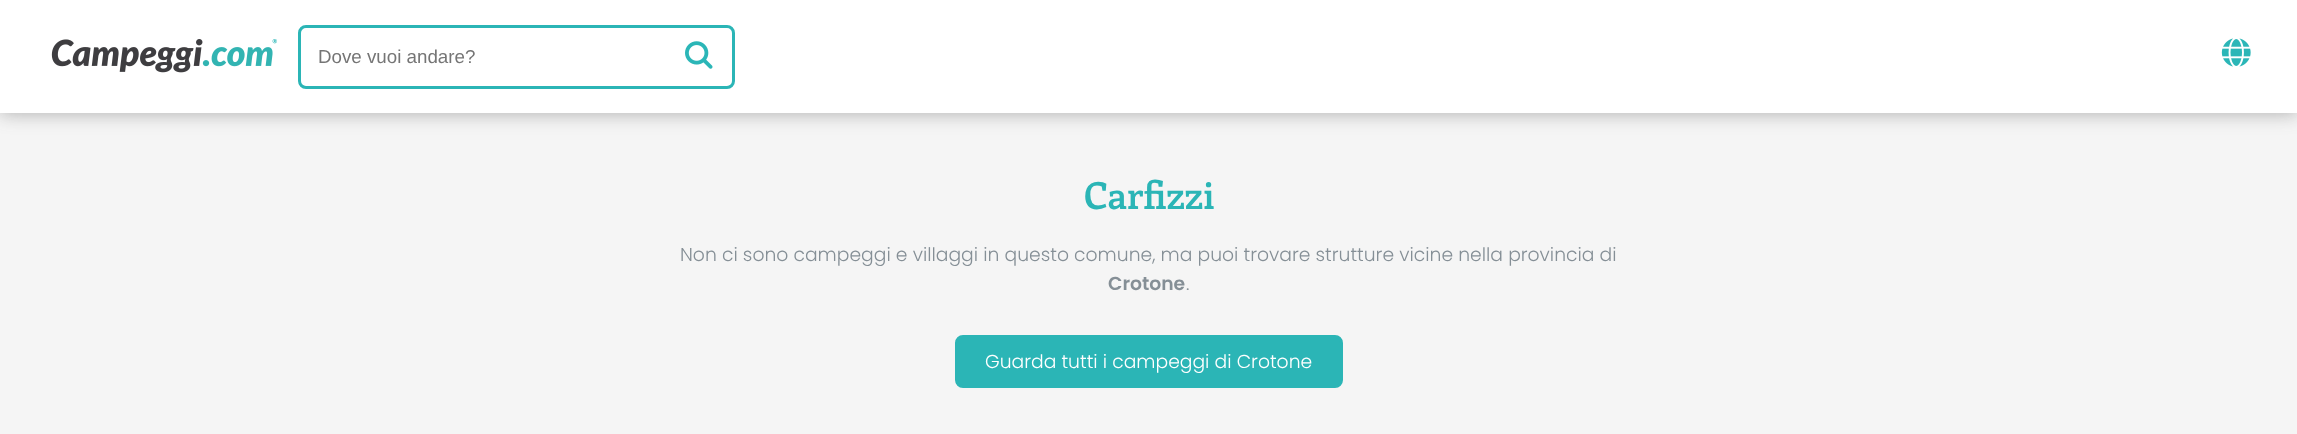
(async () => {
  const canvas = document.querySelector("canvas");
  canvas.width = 2297;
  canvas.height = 434;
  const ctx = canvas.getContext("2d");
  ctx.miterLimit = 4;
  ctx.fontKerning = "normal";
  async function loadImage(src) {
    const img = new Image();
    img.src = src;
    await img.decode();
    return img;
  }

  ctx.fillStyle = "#f5f5f5";
  ctx.fillRect(0, 0, 2297, 434);
  ctx.fillStyle = "rgba(60, 60, 60, 0.4)";
  ctx.filter = "blur(9.5px)";
  ctx.beginPath();
  ctx.rect(0, 0, 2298, 113);
  ctx.fill();
  ctx.filter = "none";
  ctx.fillStyle = "#ffffff";
  ctx.fillRect(0, 0, 2297, 113);
  ctx.drawImage(await loadImage("img/1.png"), 51, 39, 226, 34);
  ctx.beginPath();
  ctx.roundRect(299.5, 26.5, 434, 61, 6.5);
  ctx.strokeStyle = "#2bb5b6";
  ctx.lineWidth = 3;
  ctx.stroke();
  ctx.drawImage(await loadImage("img/2.png"), 685, 41, 28, 28);
  ctx.drawImage(await loadImage("img/3.png"), 2221, 38, 30, 29);
  ctx.fillStyle = "#2bb5b6";
  ctx.beginPath();
  ctx.roundRect(956.5, 336.5, 385, 50, 6.5);
  ctx.fill();
  ctx.stroke();
  ctx.font = "18.75px Liberation Sans";
  ctx.fillStyle = "#757575";
  ctx.fillText("Dove vuoi andare?", 318, 63);
  ctx.font = "600 37.5px Enriqueta";
  ctx.fillStyle = "#2bb5b6";
  ctx.fillText("Carfizzi", 1084, 209);
  ctx.font = "300 18.75px Poppins";
  ctx.fillStyle = "#858f96";
  ctx.fillText("Non ci sono campeggi e villaggi in questo comune, ma puoi trovare strutture vicine nella provincia di", 680, 261);
  ctx.font = "600 18.75px Poppins";
  ctx.fillText("Crotone", 1108, 290);
  ctx.font = "300 18.75px Poppins";
  ctx.fillText(".", 1186, 290);
  ctx.fillStyle = "#ffffff";
  ctx.fillText("Guarda tutti i campeggi di Crotone", 985, 368);
})();
